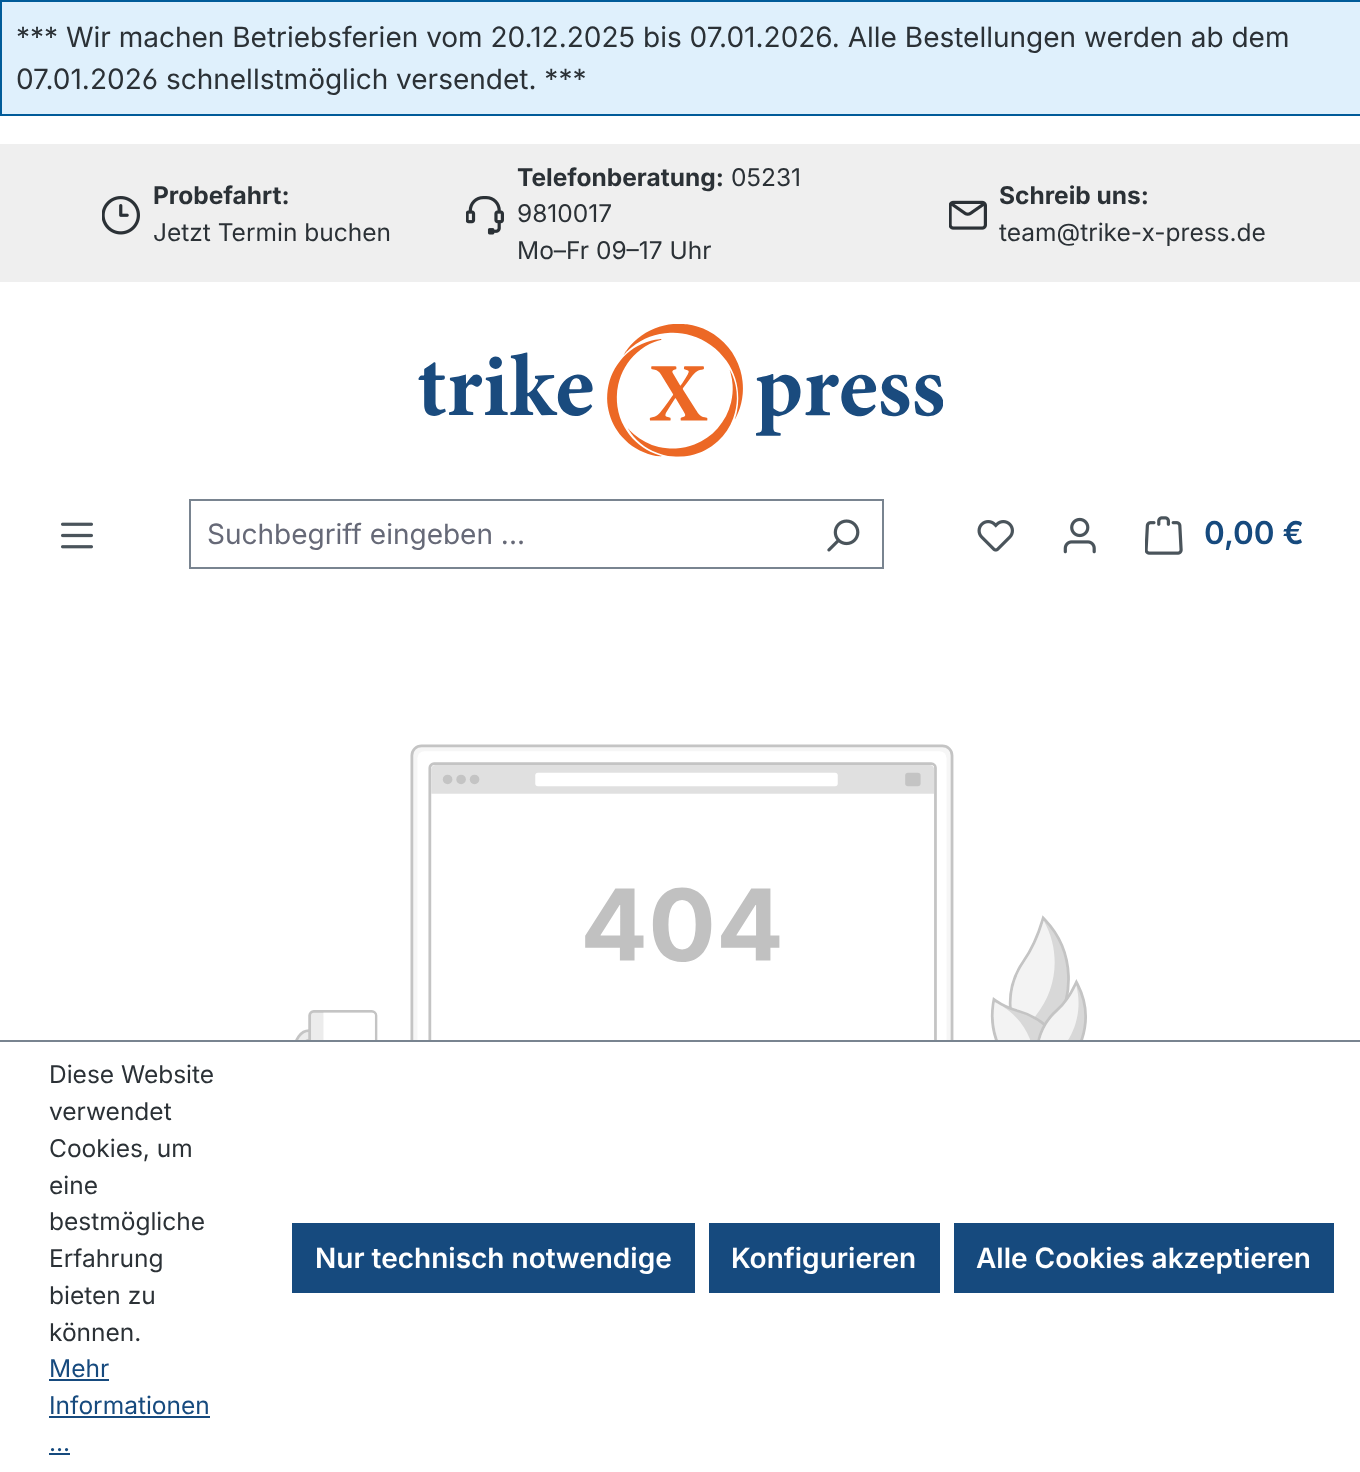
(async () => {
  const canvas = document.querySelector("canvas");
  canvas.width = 1360;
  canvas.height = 1472;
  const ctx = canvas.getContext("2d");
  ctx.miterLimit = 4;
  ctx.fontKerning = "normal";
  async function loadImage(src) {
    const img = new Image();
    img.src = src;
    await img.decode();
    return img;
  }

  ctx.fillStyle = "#ffffff";
  ctx.fillRect(0, 0, 1360, 1472);
  ctx.fillStyle = "#dff0fc";
  ctx.beginPath();
  ctx.rect(1, 1, 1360, 114);
  ctx.fill();
  ctx.strokeStyle = "#005b99";
  ctx.lineWidth = 2;
  ctx.stroke();
  ctx.fillStyle = "#efefef";
  ctx.fillRect(0, 144, 1360, 138);
  ctx.drawImage(await loadImage("img/1.png"), 102, 196, 38, 39);
  ctx.drawImage(await loadImage("img/2.png"), 466, 196, 38, 39);
  ctx.drawImage(await loadImage("img/3.png"), 949, 200, 38, 30);
  ctx.drawImage(await loadImage("img/4.png"), 418, 324, 525, 133);
  ctx.drawImage(await loadImage("img/5.png"), 61, 522, 32, 27);
  for (const [x, y, w, h, color] of [
    [189, 499, 695, 2, "#798490"],
    [189, 567, 614, 2, "#798490"],
    [189, 499, 2, 70, "#798490"],
    [882, 499, 2, 70, "#798490"],
    [802, 567, 82, 2, "#798490"],
  ]) {
    ctx.fillStyle = color;
    ctx.fillRect(x, y, w, h);
  }
  ctx.drawImage(await loadImage("img/6.png"), 827, 519, 33, 33);
  ctx.drawImage(await loadImage("img/7.png"), 977, 520, 37, 32);
  ctx.drawImage(await loadImage("img/8.png"), 1063, 517, 33, 37);
  ctx.drawImage(await loadImage("img/9.png"), 1145, 516, 38, 39);
  ctx.drawImage(await loadImage("img/10.png"), 295, 744, 792, 296);
  for (const [x, y, w, h, color] of [
    [0, 1040, 1360, 2, "#798490"],
    [49, 1379, 60, 2, "#164a7e"],
    [49, 1416, 161, 2, "#164a7e"],
    [49, 1453, 21, 2, "#164a7e"],
    [292, 1223, 403, 70, "#164a7e"],
    [709, 1223, 231, 70, "#164a7e"],
    [954, 1223, 380, 70, "#164a7e"],
  ]) {
    ctx.fillStyle = color;
    ctx.fillRect(x, y, w, h);
  }
  ctx.font = "28px Inter";
  ctx.fillStyle = "#2b3136";
  ctx.fillText("*** Wir machen Betriebsferien vom 20.12.2025 bis 07.01.2026. Alle Bestellungen werden ab dem", 16, 47);
  ctx.font = "28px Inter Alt";
  ctx.fillText("07.01.2026 schnellstmöglich versendet. ***", 16, 89);
  ctx.font = "bold 24.5px Inter";
  ctx.fillText("Probefahrt:", 153, 204);
  ctx.font = "24.5px Inter";
  ctx.fillText("Jetzt Termin buchen", 153, 241);
  ctx.font = "bold 24.5px Inter";
  ctx.fillText("Telefonberatung:", 517, 186);
  ctx.font = "24.5px Inter";
  for (const [text, x, y] of [
    ["05231", 731, 186],
    ["9810017", 517, 222],
    ["Mo–Fr 09–17 Uhr", 517, 259],
  ]) {
    ctx.fillText(text, x, y);
  }
  ctx.font = "bold 24.5px Inter";
  ctx.fillText("Schreib uns:", 999, 204);
  ctx.font = "24.5px Inter";
  ctx.fillText("team@trike-x-press.de", 999, 241);
  ctx.font = "28px Inter";
  ctx.fillStyle = "#666977";
  ctx.fillText("Suchbegriff eingeben ...", 207, 544);
  ctx.font = "600 31.5px Inter";
  ctx.fillStyle = "#164a7e";
  ctx.fillText("0,00 €", 1204, 544);
  ctx.font = "24.5px Inter";
  ctx.fillStyle = "#2b3136";
  for (const [text, x, y] of [
    ["Diese Website", 49, 1083],
    ["verwendet", 49, 1120],
    ["Cookies, um", 49, 1157],
    ["eine", 49, 1194],
    ["bestmögliche", 49, 1230],
    ["Erfahrung", 49, 1267],
    ["bieten zu", 49, 1304],
    ["können.", 49, 1341],
  ]) {
    ctx.fillText(text, x, y);
  }
  ctx.fillStyle = "#164a7e";
  for (const [text, x, y] of [
    ["Mehr", 49, 1377],
    ["Informationen", 49, 1414],
    ["...", 49, 1451],
  ]) {
    ctx.fillText(text, x, y);
  }
  ctx.font = "600 28px Inter";
  ctx.fillStyle = "#ffffff";
  for (const [text, x, y] of [
    ["Nur technisch notwendige", 315, 1268],
    ["Konfigurieren", 731, 1268],
    ["Alle Cookies akzeptieren", 976, 1268],
  ]) {
    ctx.fillText(text, x, y);
  }
})();
